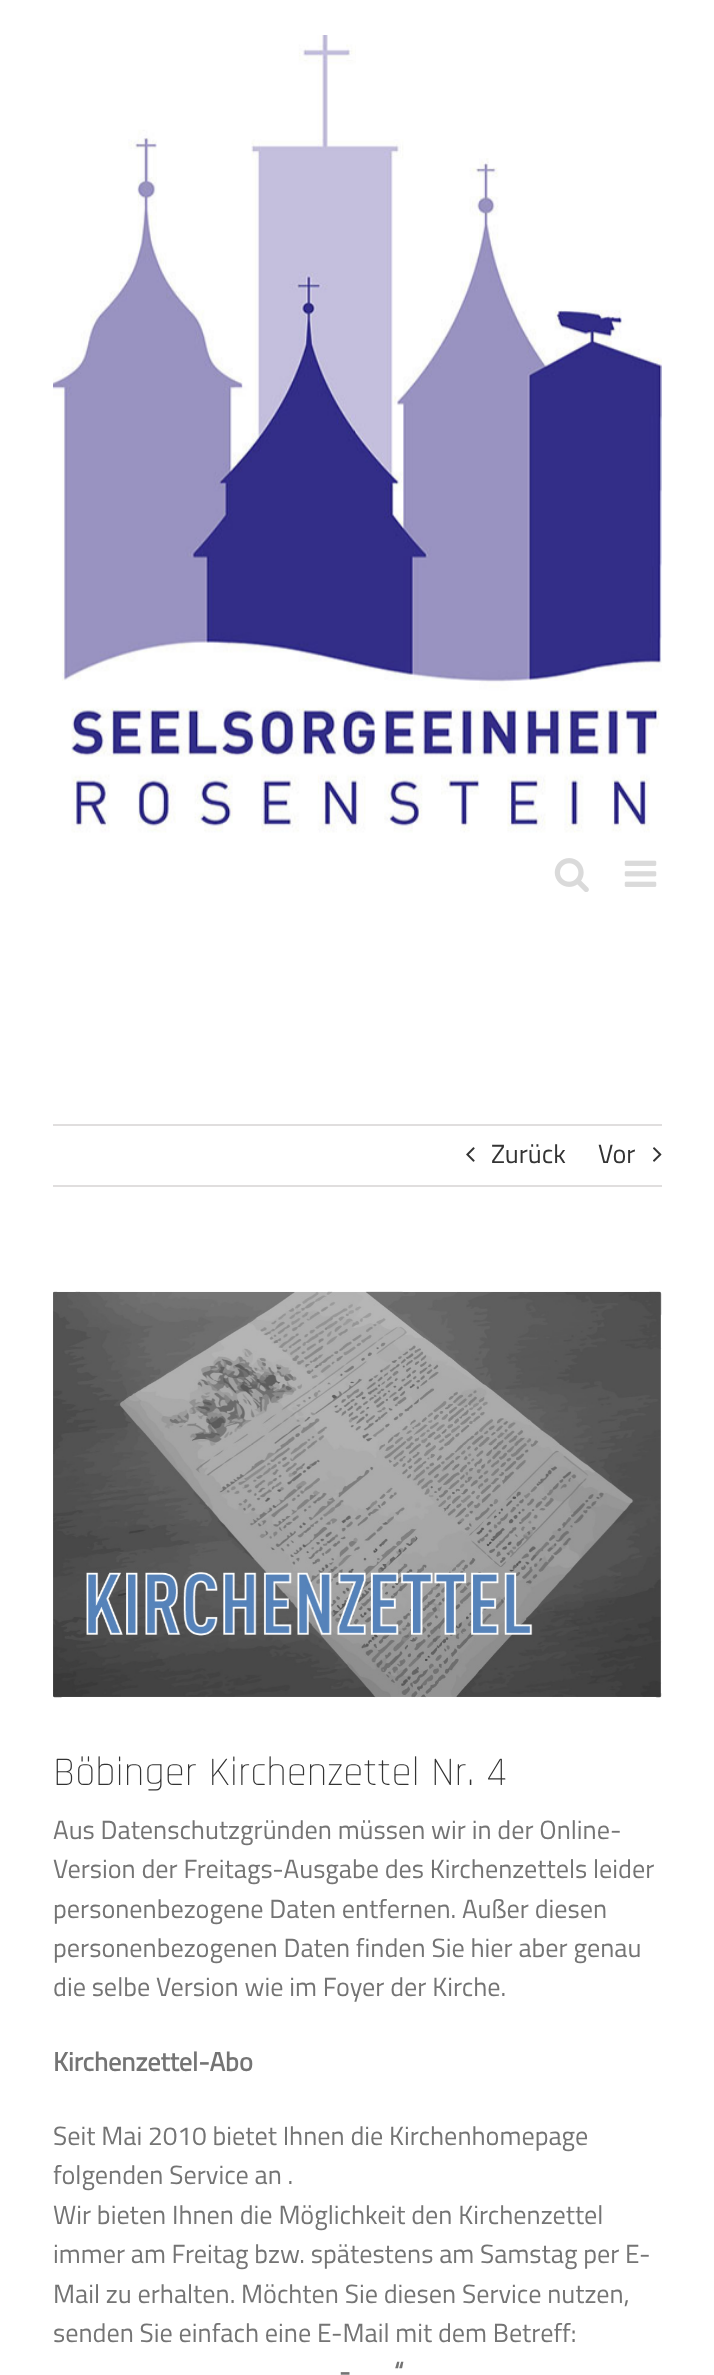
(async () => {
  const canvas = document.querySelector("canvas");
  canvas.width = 714;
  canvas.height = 2375;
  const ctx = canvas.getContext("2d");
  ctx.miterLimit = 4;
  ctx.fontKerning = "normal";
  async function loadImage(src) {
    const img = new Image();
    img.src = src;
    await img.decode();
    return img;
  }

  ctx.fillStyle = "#ffffff";
  ctx.fillRect(0, 0, 714, 2375);
  ctx.drawImage(await loadImage("img/1.png"), 53, 35, 609, 798);
  ctx.drawImage(await loadImage("img/2.png"), 554, 858, 35, 34);
  ctx.drawImage(await loadImage("img/3.png"), 624, 860, 33, 27);
  ctx.fillStyle = "#e0dede";
  ctx.fillRect(53, 1124, 609, 2);
  ctx.fillRect(53, 1185, 609, 2);
  ctx.drawImage(await loadImage("img/4.png"), 466, 1147, 9, 15);
  ctx.drawImage(await loadImage("img/5.png"), 653, 1147, 9, 15);
  ctx.drawImage(await loadImage("img/6.png"), 53, 1291, 609, 407);
  ctx.font = "26.25px Titillium Web";
  ctx.fillStyle = "#333333";
  ctx.fillText("Zurück", 491, 1163);
  ctx.fillText("Vor", 598, 1163);
  ctx.font = "300 40.75px Rajdhani";
  ctx.fillText("Böbinger Kirchenzettel Nr. 4", 53, 1785);
  ctx.font = "26.25px Titillium Web";
  ctx.fillStyle = "#747474";
  for (const [text, x, y] of [
    ["Aus Datenschutzgründen müssen wir in der Online-", 53, 1839],
    ["Version der Freitags-Ausgabe des Kirchenzettels leider", 53, 1878],
    ["personenbezogene Daten entfernen. Außer diesen", 53, 1918],
    ["personenbezogenen Daten finden Sie hier aber genau", 53, 1957],
    ["die selbe Version wie im Foyer der Kirche.", 53, 1996],
  ]) {
    ctx.fillText(text, x, y);
  }
  ctx.font = "bold 26.25px Titillium Web";
  ctx.fillText("Kirchenzettel-Abo", 53, 2071);
  ctx.font = "26.25px Titillium Web";
  for (const [text, x, y] of [
    ["Seit Mai 2010 bietet Ihnen die Kirchenhomepage", 53, 2145],
    ["folgenden Service an .", 53, 2184],
    ["Wir bieten Ihnen die Möglichkeit den Kirchenzettel", 53, 2224],
    ["immer am Freitag bzw. spätestens am Samstag per E-", 53, 2263],
    ["Mail zu erhalten. Möchten Sie diesen Service nutzen,", 53, 2303],
    ["senden Sie einfach eine E-Mail mit dem Betreff:", 53, 2342],
  ]) {
    ctx.fillText(text, x, y);
  }
  ctx.font = "bold 26.25px Titillium Web";
  ctx.fillText("“", 394, 2381);
  ctx.fillText("-", 339, 2381);
})();
